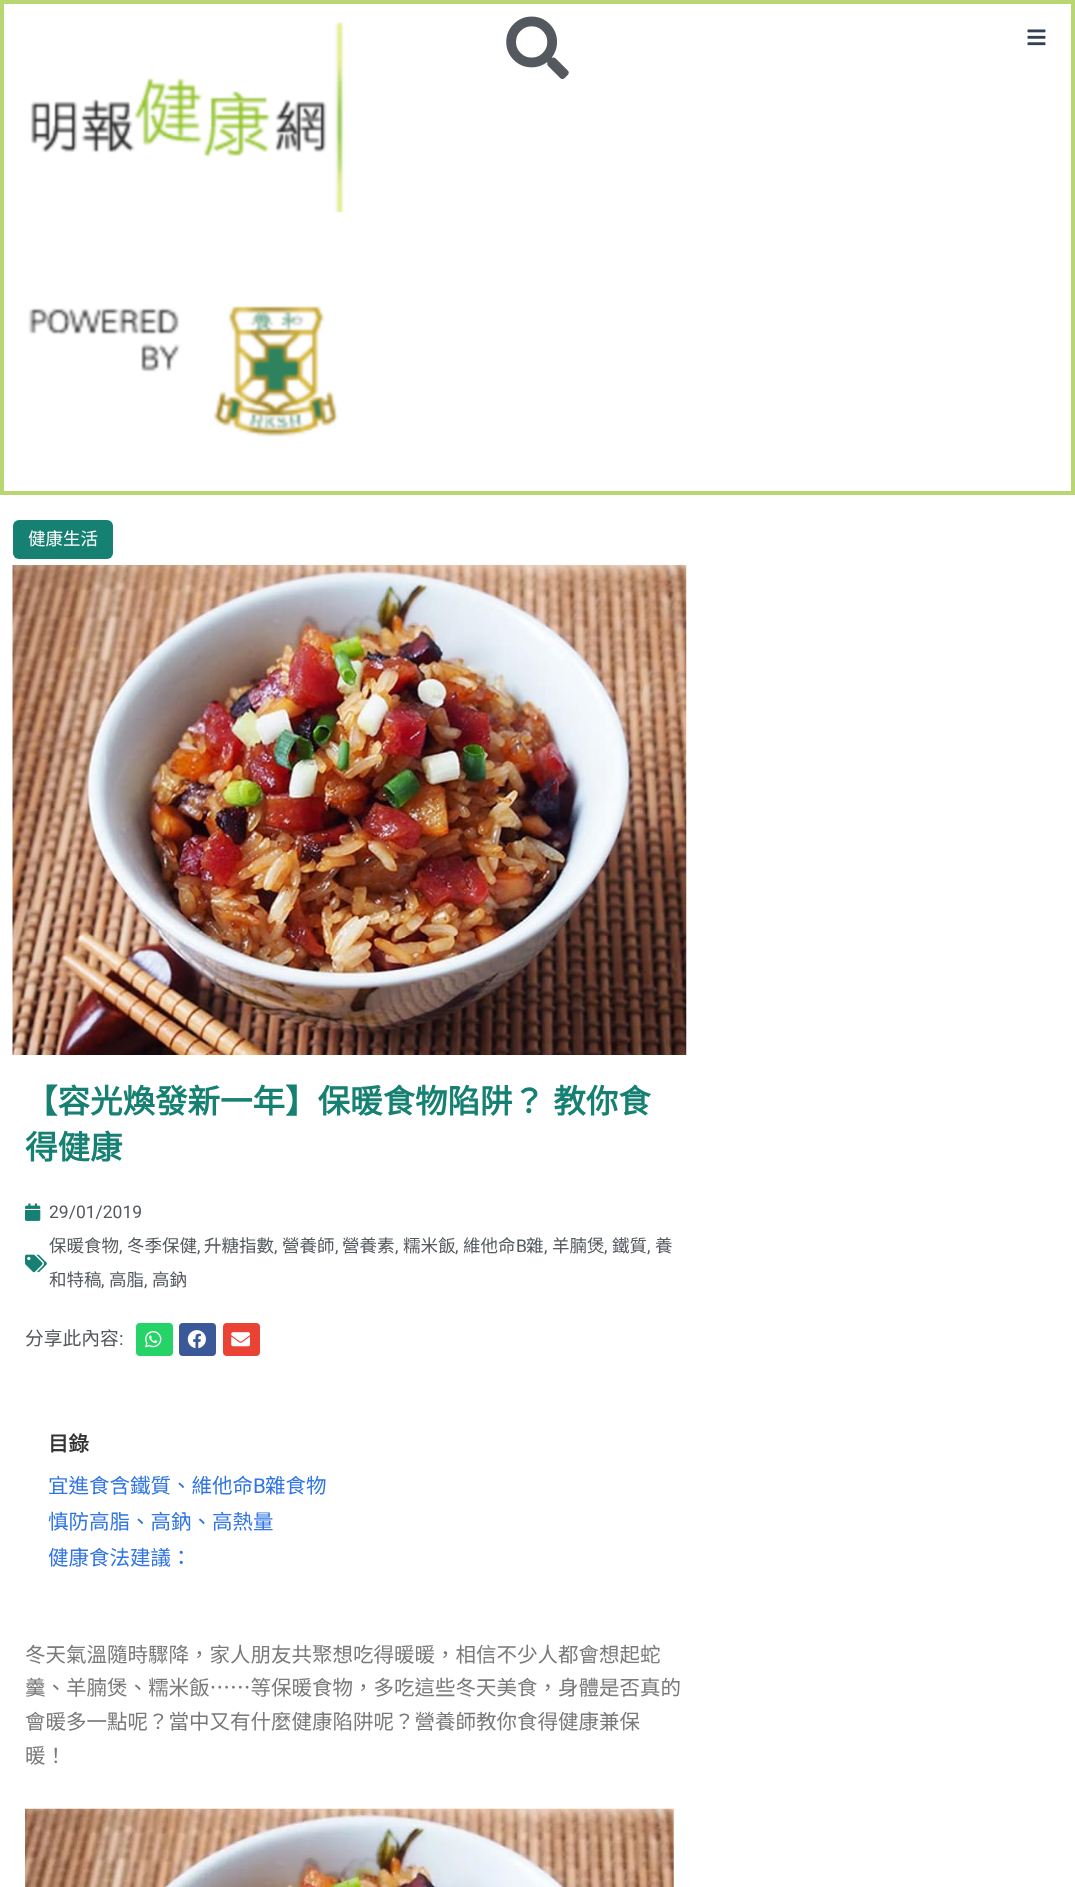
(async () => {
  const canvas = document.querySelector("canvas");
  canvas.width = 1075;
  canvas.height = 1887;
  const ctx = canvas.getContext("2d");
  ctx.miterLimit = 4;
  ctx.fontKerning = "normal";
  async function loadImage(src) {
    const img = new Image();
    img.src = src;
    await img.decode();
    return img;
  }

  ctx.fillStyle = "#ffffff";
  ctx.fillRect(0, 0, 1075, 1887);
  ctx.strokeStyle = "#b8d772";
  ctx.lineWidth = 4;
  ctx.strokeRect(2, 2, 1071, 491);
  ctx.drawImage(await loadImage("img/1.png"), 30, 22, 314, 191);
  ctx.drawImage(await loadImage("img/2.png"), 28, 306, 311, 131);
  ctx.drawImage(await loadImage("img/3.png"), 506, 16, 63, 63);
  ctx.drawImage(await loadImage("img/4.png"), 1027, 29, 19, 17);
  ctx.fillStyle = "#168073";
  ctx.beginPath();
  ctx.roundRect(13, 520, 100, 39, 6);
  ctx.fill();
  ctx.drawImage(await loadImage("img/5.png"), 12, 565, 675, 490);
  ctx.drawImage(await loadImage("img/6.png"), 25, 1203, 16, 18);
  ctx.drawImage(await loadImage("img/7.png"), 25, 1254, 22, 19);
  ctx.beginPath();
  ctx.roundRect(137.5, 1324.5, 34, 30, 2.5);
  ctx.strokeStyle = "#25d366";
  ctx.lineWidth = 3;
  ctx.stroke();
  ctx.fillStyle = "#25d366";
  ctx.beginPath();
  ctx.roundRect(139, 1325, 31, 29, 1);
  ctx.fill();
  ctx.drawImage(await loadImage("img/8.png"), 145, 1331, 17, 17);
  ctx.beginPath();
  ctx.roundRect(180.5, 1324.5, 34, 30, 2.5);
  ctx.strokeStyle = "#3b5998";
  ctx.stroke();
  ctx.fillStyle = "#3b5998";
  ctx.beginPath();
  ctx.roundRect(181, 1325, 33, 29, 1);
  ctx.fill();
  ctx.drawImage(await loadImage("img/9.png"), 187, 1330, 19, 19);
  ctx.beginPath();
  ctx.roundRect(224.5, 1324.5, 34, 30, 2.5);
  ctx.strokeStyle = "#ea4335";
  ctx.stroke();
  ctx.fillStyle = "#ea4335";
  ctx.beginPath();
  ctx.roundRect(225, 1325, 33, 29, 1);
  ctx.fill();
  ctx.drawImage(await loadImage("img/10.png"), 231, 1332, 19, 15);
  ctx.drawImage(await loadImage("img/11.png"), 25, 1808, 649, 79);
  ctx.font = "17.5px Noto Sans CJK HK";
  ctx.fillStyle = "#ffffff";
  ctx.fillText("健康生活", 28, 545);
  ctx.wordSpacing = "1px";
  ctx.font = "bold 32.5px Noto Sans CJK HK";
  ctx.fillStyle = "#168073";
  ctx.fillText("【容光煥發新一年】保暖食物陷阱？ 教你食", 25, 1113);
  ctx.wordSpacing = "0px";
  ctx.fillText("得健康", 25, 1159);
  ctx.font = "17.5px Roboto";
  ctx.fillStyle = "#54595f";
  ctx.fillText("29/01/2019", 49, 1218);
  ctx.font = "17.5px Noto Sans CJK HK";
  for (const [text, x, y] of [
    ["保暖食物", 49, 1252],
    ["冬季保健", 127, 1252],
    ["升糖指數", 204, 1252],
    ["營養師", 282, 1252],
    ["營養素", 342, 1252],
    ["糯米飯", 403, 1252],
    ["維他命", 463, 1252],
  ]) {
    ctx.fillText(text, x, y);
  }
  ctx.font = "17.5px Roboto";
  ctx.fillText("B", 516, 1252);
  ctx.font = "17.5px Noto Sans CJK HK";
  for (const [text, x, y] of [
    ["雜", 526, 1252],
    ["羊腩煲", 552, 1252],
    ["鐵質", 612, 1252],
    ["養", 655, 1252],
  ]) {
    ctx.fillText(text, x, y);
  }
  ctx.font = "17.5px Roboto";
  for (const [text, x, y] of [
    [",", 119, 1252],
    [",", 197, 1252],
    [",", 274, 1252],
    [",", 335, 1252],
    [",", 395, 1252],
    [",", 455, 1252],
    [",", 544, 1252],
    [",", 604, 1252],
    [",", 647, 1252],
  ]) {
    ctx.fillText(text, x, y);
  }
  ctx.font = "17.5px Noto Sans CJK HK";
  ctx.fillText("和特稿", 49, 1286);
  ctx.font = "17.5px Roboto";
  ctx.fillText(",", 101, 1286);
  ctx.font = "17.5px Noto Sans CJK HK";
  ctx.fillText("高脂", 109, 1286);
  ctx.font = "17.5px Roboto";
  ctx.fillText(",", 144, 1286);
  ctx.font = "17.5px Noto Sans CJK HK";
  ctx.fillText("高鈉", 152, 1286);
  ctx.font = "18.75px Noto Sans CJK HK";
  ctx.fillText("分享此內容", 25, 1345);
  ctx.font = "18.75px Roboto";
  ctx.fillText(":", 119, 1345);
  ctx.font = "bold 20.5px Noto Sans CJK HK";
  ctx.fillStyle = "#333333";
  ctx.fillText("目錄", 48, 1451);
  ctx.font = "20.5px Noto Sans CJK HK";
  ctx.fillStyle = "#3175e4";
  ctx.fillText("宜進食含鐵質、維他命", 48, 1493);
  ctx.font = "20.5px Roboto";
  ctx.fillText("B", 253, 1493);
  ctx.font = "20.5px Noto Sans CJK HK";
  for (const [text, x, y] of [
    ["雜食物", 265, 1493],
    ["慎防高脂、高鈉、高熱量", 48, 1529],
    ["健康食法建議：", 48, 1565],
  ]) {
    ctx.fillText(text, x, y);
  }
  ctx.fillStyle = "#7a7a7a";
  for (const [text, x, y] of [
    ["冬天氣溫隨時驟降，家人朋友共聚想吃得暖暖，相信不少人都會想起蛇", 25, 1662],
    ["羹、羊腩煲、糯米飯……等保暖食物，多吃這些冬天美食，身體是否真的", 25, 1695],
    ["會暖多一點呢？當中又有什麼健康陷阱呢？營養師教你食得健康兼保", 25, 1729],
    ["暖！", 25, 1763],
  ]) {
    ctx.fillText(text, x, y);
  }
})();
